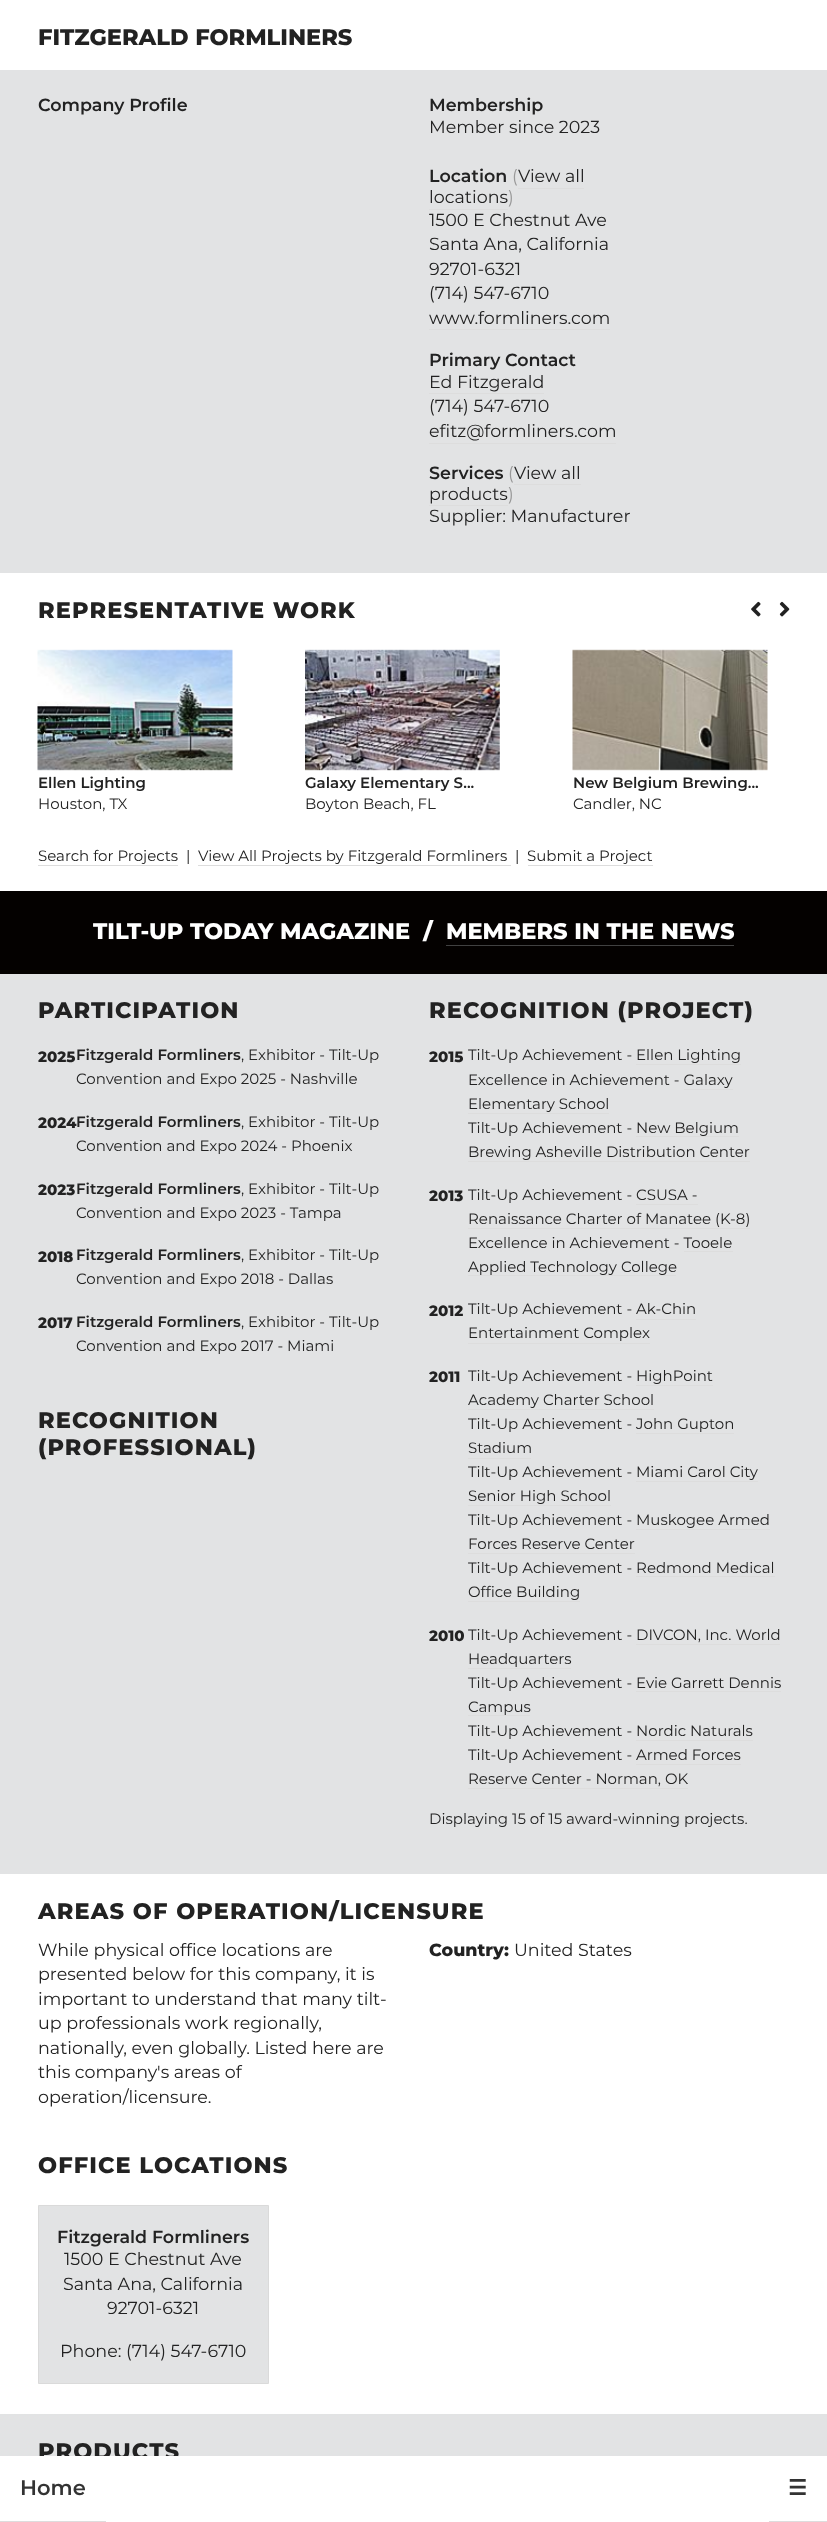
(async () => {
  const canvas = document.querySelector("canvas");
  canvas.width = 827;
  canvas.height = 2522;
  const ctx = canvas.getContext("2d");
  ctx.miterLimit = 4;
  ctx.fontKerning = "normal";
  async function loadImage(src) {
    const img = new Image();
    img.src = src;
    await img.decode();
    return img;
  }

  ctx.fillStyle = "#ffffff";
  ctx.fillRect(0, 0, 827, 2522);
  for (const [x, y, w, h, color] of [
    [0, 70, 827, 503, "#e2e3e4"],
    [518, 188, 66, 1, "#dddddd"],
    [429, 209, 79, 1, "#dddddd"],
    [429, 329, 181, 1, "#dddddd"],
    [429, 393, 115, 1, "#dddddd"],
    [429, 443, 187, 1, "#dddddd"],
    [514, 484, 67, 1, "#dddddd"],
    [429, 505, 79, 1, "#dddddd"],
  ]) {
    ctx.fillStyle = color;
    ctx.fillRect(x, y, w, h);
  }
  ctx.drawImage(await loadImage("img/1.png"), 751, 601, 10, 16);
  ctx.drawImage(await loadImage("img/2.png"), 779, 601, 11, 16);
  ctx.drawImage(await loadImage("img/3.png"), 37, 649, 196, 122);
  ctx.drawImage(await loadImage("img/4.png"), 305, 649, 195, 122);
  ctx.drawImage(await loadImage("img/5.png"), 572, 649, 196, 122);
  for (const [x, y, w, h, color] of [
    [38, 865, 140, 1, "#dddddd"],
    [198, 865, 313, 1, "#dddddd"],
    [528, 865, 125, 1, "#dddddd"],
    [0, 891, 827, 83, "#040100"],
    [446, 945, 288, 1, "#414141"],
    [0, 974, 827, 900, "#e2e3e4"],
    [636, 1064, 105, 1, "#dddddd"],
    [684, 1089, 49, 1, "#dddddd"],
    [468, 1113, 141, 1, "#dddddd"],
    [636, 1136, 103, 1, "#dddddd"],
    [468, 1161, 282, 1, "#dddddd"],
    [636, 1204, 62, 1, "#dddddd"],
    [468, 1228, 282, 1, "#dddddd"],
    [684, 1251, 49, 1, "#dddddd"],
    [468, 1275, 208, 1, "#dddddd"],
    [636, 1319, 60, 1, "#dddddd"],
    [468, 1343, 182, 1, "#dddddd"],
    [636, 1385, 77, 1, "#dddddd"],
    [468, 1409, 186, 1, "#dddddd"],
    [636, 1433, 98, 1, "#dddddd"],
    [468, 1458, 63, 1, "#dddddd"],
    [636, 1481, 122, 1, "#dddddd"],
    [468, 1505, 143, 1, "#dddddd"],
    [636, 1529, 134, 1, "#dddddd"],
    [468, 1553, 167, 1, "#dddddd"],
    [636, 1576, 139, 1, "#dddddd"],
    [468, 1601, 112, 1, "#dddddd"],
    [636, 1644, 144, 1, "#dddddd"],
    [468, 1668, 103, 1, "#dddddd"],
    [636, 1691, 145, 1, "#dddddd"],
    [468, 1715, 62, 1, "#dddddd"],
    [636, 1740, 117, 1, "#dddddd"],
    [636, 1764, 105, 1, "#dddddd"],
    [468, 1788, 220, 1, "#dddddd"],
  ]) {
    ctx.fillStyle = color;
    ctx.fillRect(x, y, w, h);
  }
  ctx.fillStyle = "#e2e3e4";
  ctx.beginPath();
  ctx.rect(38.5, 2205.5, 230, 178);
  ctx.fill();
  ctx.strokeStyle = "#dadada";
  ctx.stroke();
  for (const [x, y, w, h, color] of [
    [0, 2414, 827, 42, "#e2e3e4"],
    [0, 2521, 106, 1, "#dddddd"],
    [769, 2521, 58, 1, "#dddddd"],
  ]) {
    ctx.fillStyle = color;
    ctx.fillRect(x, y, w, h);
  }
  ctx.font = "800 22.5px Montserrat";
  ctx.fillStyle = "#222222";
  ctx.fillText("FITZGERALD FORMLINERS", 38, 45);
  ctx.font = "600 17.5px Montserrat";
  ctx.fillText("Company Profile", 38, 111);
  ctx.fillText("Membership", 429, 111);
  ctx.font = "17.5px Montserrat";
  ctx.fillText("Member since 2023", 429, 133);
  ctx.font = "600 17.5px Montserrat";
  ctx.fillText("Location", 429, 182);
  ctx.font = "17.5px Montserrat";
  ctx.fillStyle = "#999999";
  ctx.fillText("(", 512, 182);
  ctx.fillStyle = "#222222";
  ctx.fillText("View all", 518, 182);
  ctx.fillText("locations", 429, 203);
  ctx.fillStyle = "#999999";
  ctx.fillText(")", 508, 203);
  ctx.fillStyle = "#222222";
  for (const [text, x, y] of [
    ["1500 E Chestnut Ave", 429, 226],
    ["Santa Ana, California", 429, 250],
    ["92701-6321", 429, 275],
    ["(714) 547-6710", 429, 299],
    ["www.formliners.com", 429, 324],
  ]) {
    ctx.fillText(text, x, y);
  }
  ctx.font = "600 17.5px Montserrat";
  ctx.fillText("Primary Contact", 429, 366);
  ctx.font = "17.5px Montserrat";
  for (const [text, x, y] of [
    ["Ed Fitzgerald", 429, 388],
    ["(714) 547-6710", 429, 412],
    ["efitz@formliners.com", 429, 437],
  ]) {
    ctx.fillText(text, x, y);
  }
  ctx.font = "600 17.5px Montserrat";
  ctx.fillText("Services", 429, 479);
  ctx.font = "17.5px Montserrat";
  ctx.fillStyle = "#999999";
  ctx.fillText("(", 508, 479);
  ctx.fillStyle = "#222222";
  ctx.fillText("View all", 514, 479);
  ctx.fillText("products", 429, 500);
  ctx.fillStyle = "#999999";
  ctx.fillText(")", 508, 500);
  ctx.fillStyle = "#222222";
  ctx.fillText("Supplier: Manufacturer", 429, 522);
  ctx.letterSpacing = "1.1px";
  ctx.font = "800 22.5px Montserrat";
  ctx.fillText("REPRESENTATIVE WORK", 38, 618);
  ctx.letterSpacing = "0px";
  ctx.font = "600 15px Montserrat";
  ctx.fillText("Ellen Lighting", 38, 788);
  ctx.font = "15px Montserrat";
  ctx.fillText("Houston, TX", 38, 809);
  ctx.font = "600 15px Montserrat";
  ctx.fillText("Galaxy Elementary S...", 305, 788);
  ctx.font = "15px Montserrat";
  ctx.fillText("Boyton Beach, FL", 305, 809);
  ctx.font = "600 15px Montserrat";
  ctx.fillText("New Belgium Brewing...", 573, 788);
  ctx.font = "15px Montserrat";
  for (const [text, x, y] of [
    ["Candler, NC", 573, 809],
    ["Search for Projects", 38, 861],
    ["|", 186, 861],
    ["View All Projects by Fitzgerald Formliners", 198, 861],
    ["|", 515, 861],
    ["Submit a Project", 527, 861],
  ]) {
    ctx.fillText(text, x, y);
  }
  ctx.font = "800 22.5px Montserrat";
  ctx.fillStyle = "#ffffff";
  ctx.fillText("TILT-UP TODAY MAGAZINE  /", 93, 939);
  ctx.fillText("MEMBERS IN THE NEWS", 446, 939);
  ctx.letterSpacing = "1.1px";
  ctx.fillStyle = "#222222";
  ctx.fillText("PARTICIPATION", 38, 1018);
  ctx.letterSpacing = "0px";
  ctx.font = "800 15px Montserrat";
  ctx.fillText("2025", 38, 1062);
  ctx.font = "600 15px Montserrat";
  ctx.fillText("Fitzgerald Formliners", 76, 1060);
  ctx.font = "15px Montserrat";
  ctx.fillText(", Exhibitor - Tilt-Up", 241, 1060);
  ctx.fillText("Convention and Expo 2025 - Nashville", 76, 1084);
  ctx.font = "800 15px Montserrat";
  ctx.fillText("2024", 38, 1128);
  ctx.font = "600 15px Montserrat";
  ctx.fillText("Fitzgerald Formliners", 76, 1127);
  ctx.font = "15px Montserrat";
  ctx.fillText(", Exhibitor - Tilt-Up", 241, 1127);
  ctx.fillText("Convention and Expo 2024 - Phoenix", 76, 1151);
  ctx.font = "800 15px Montserrat";
  ctx.fillText("2023", 38, 1195);
  ctx.font = "600 15px Montserrat";
  ctx.fillText("Fitzgerald Formliners", 76, 1194);
  ctx.font = "15px Montserrat";
  ctx.fillText(", Exhibitor - Tilt-Up", 241, 1194);
  ctx.fillText("Convention and Expo 2023 - Tampa", 76, 1218);
  ctx.font = "800 15px Montserrat";
  ctx.fillText("2018", 38, 1262);
  ctx.font = "600 15px Montserrat";
  ctx.fillText("Fitzgerald Formliners", 76, 1260);
  ctx.font = "15px Montserrat";
  ctx.fillText(", Exhibitor - Tilt-Up", 241, 1260);
  ctx.fillText("Convention and Expo 2018 - Dallas", 76, 1284);
  ctx.font = "800 15px Montserrat";
  ctx.fillText("2017", 38, 1328);
  ctx.font = "600 15px Montserrat";
  ctx.fillText("Fitzgerald Formliners", 76, 1327);
  ctx.font = "15px Montserrat";
  ctx.fillText(", Exhibitor - Tilt-Up", 241, 1327);
  ctx.fillText("Convention and Expo 2017 - Miami", 76, 1351);
  ctx.letterSpacing = "1.1px";
  ctx.font = "800 22.5px Montserrat";
  for (const [text, x, y] of [
    ["RECOGNITION", 38, 1428],
    ["(PROFESSIONAL)", 38, 1455],
    ["RECOGNITION (PROJECT)", 429, 1018],
  ]) {
    ctx.fillText(text, x, y);
  }
  ctx.letterSpacing = "0px";
  ctx.font = "800 15px Montserrat";
  ctx.fillText("2015", 429, 1062);
  ctx.font = "15px Montserrat";
  for (const [text, x, y] of [
    ["Tilt-Up Achievement - Ellen Lighting", 468, 1060],
    ["Excellence in Achievement - Galaxy", 468, 1085],
    ["Elementary School", 468, 1109],
    ["Tilt-Up Achievement - New Belgium", 468, 1133],
    ["Brewing Asheville Distribution Center", 468, 1157],
  ]) {
    ctx.fillText(text, x, y);
  }
  ctx.font = "800 15px Montserrat";
  ctx.fillText("2013", 429, 1201);
  ctx.font = "15px Montserrat";
  for (const [text, x, y] of [
    ["Tilt-Up Achievement - CSUSA -", 468, 1200],
    ["Renaissance Charter of Manatee (K-8)", 468, 1224],
    ["Excellence in Achievement - Tooele", 468, 1248],
    ["Applied Technology College", 468, 1272],
  ]) {
    ctx.fillText(text, x, y);
  }
  ctx.font = "800 15px Montserrat";
  ctx.fillText("2012", 429, 1316);
  ctx.font = "15px Montserrat";
  ctx.fillText("Tilt-Up Achievement - Ak-Chin", 468, 1314);
  ctx.fillText("Entertainment Complex", 468, 1338);
  ctx.font = "800 15px Montserrat";
  ctx.fillText("2011", 429, 1382);
  ctx.font = "15px Montserrat";
  for (const [text, x, y] of [
    ["Tilt-Up Achievement - HighPoint", 468, 1381],
    ["Academy Charter School", 468, 1405],
    ["Tilt-Up Achievement - John Gupton", 468, 1429],
    ["Stadium", 468, 1453],
    ["Tilt-Up Achievement - Miami Carol City", 468, 1477],
    ["Senior High School", 468, 1501],
    ["Tilt-Up Achievement - Muskogee Armed", 468, 1525],
    ["Forces Reserve Center", 468, 1549],
    ["Tilt-Up Achievement - Redmond Medical", 468, 1573],
    ["Office Building", 468, 1597],
  ]) {
    ctx.fillText(text, x, y);
  }
  ctx.font = "800 15px Montserrat";
  ctx.fillText("2010", 429, 1641);
  ctx.font = "15px Montserrat";
  for (const [text, x, y] of [
    ["Tilt-Up Achievement - DIVCON, Inc. World", 468, 1640],
    ["Headquarters", 468, 1664],
    ["Tilt-Up Achievement - Evie Garrett Dennis", 468, 1688],
    ["Campus", 468, 1712],
    ["Tilt-Up Achievement - Nordic Naturals", 468, 1736],
    ["Tilt-Up Achievement - Armed Forces", 468, 1760],
    ["Reserve Center - Norman, OK", 468, 1784],
    ["Displaying 15 of 15 award-winning projects.", 429, 1824],
  ]) {
    ctx.fillText(text, x, y);
  }
  ctx.letterSpacing = "1.1px";
  ctx.font = "800 22.5px Montserrat";
  ctx.fillText("AREAS OF OPERATION/LICENSURE", 38, 1919);
  ctx.letterSpacing = "0px";
  ctx.font = "17.5px Montserrat";
  for (const [text, x, y] of [
    ["While physical office locations are", 38, 1956],
    ["presented below for this company, it is", 38, 1980],
    ["important to understand that many tilt-", 38, 2005],
    ["up professionals work regionally,", 38, 2029],
    ["nationally, even globally. Listed here are", 38, 2054],
    ["this company's areas of", 38, 2078],
    ["operation/licensure.", 38, 2103],
  ]) {
    ctx.fillText(text, x, y);
  }
  ctx.font = "800 17.5px Montserrat";
  ctx.fillText("Country:", 429, 1956);
  ctx.font = "17.5px Montserrat";
  ctx.fillText("United States", 514, 1956);
  ctx.letterSpacing = "1.1px";
  ctx.font = "800 22.5px Montserrat";
  ctx.fillText("OFFICE LOCATIONS", 38, 2173);
  ctx.letterSpacing = "0px";
  ctx.font = "600 17.5px Montserrat";
  ctx.fillText("Fitzgerald Formliners", 57, 2243);
  ctx.font = "17.5px Montserrat";
  for (const [text, x, y] of [
    ["1500 E Chestnut Ave", 64, 2265],
    ["Santa Ana, California", 63, 2290],
    ["92701-6321", 107, 2314],
    ["Phone: (714) 547-6710", 60, 2357],
  ]) {
    ctx.fillText(text, x, y);
  }
  ctx.letterSpacing = "1.1px";
  ctx.font = "800 22.5px Montserrat";
  ctx.fillText("PRODUCTS", 38, 2459);
  ctx.fillStyle = "#ffffff";
  ctx.fillRect(39, 2456, 139, 4);
  ctx.letterSpacing = "0px";
  ctx.font = "600 21px Montserrat";
  ctx.fillStyle = "#333333";
  ctx.fillText("Home", 20, 2495);
  ctx.font = "bold 21px DejaVu Sans";
  ctx.fillText("☰", 788, 2495);
})();
